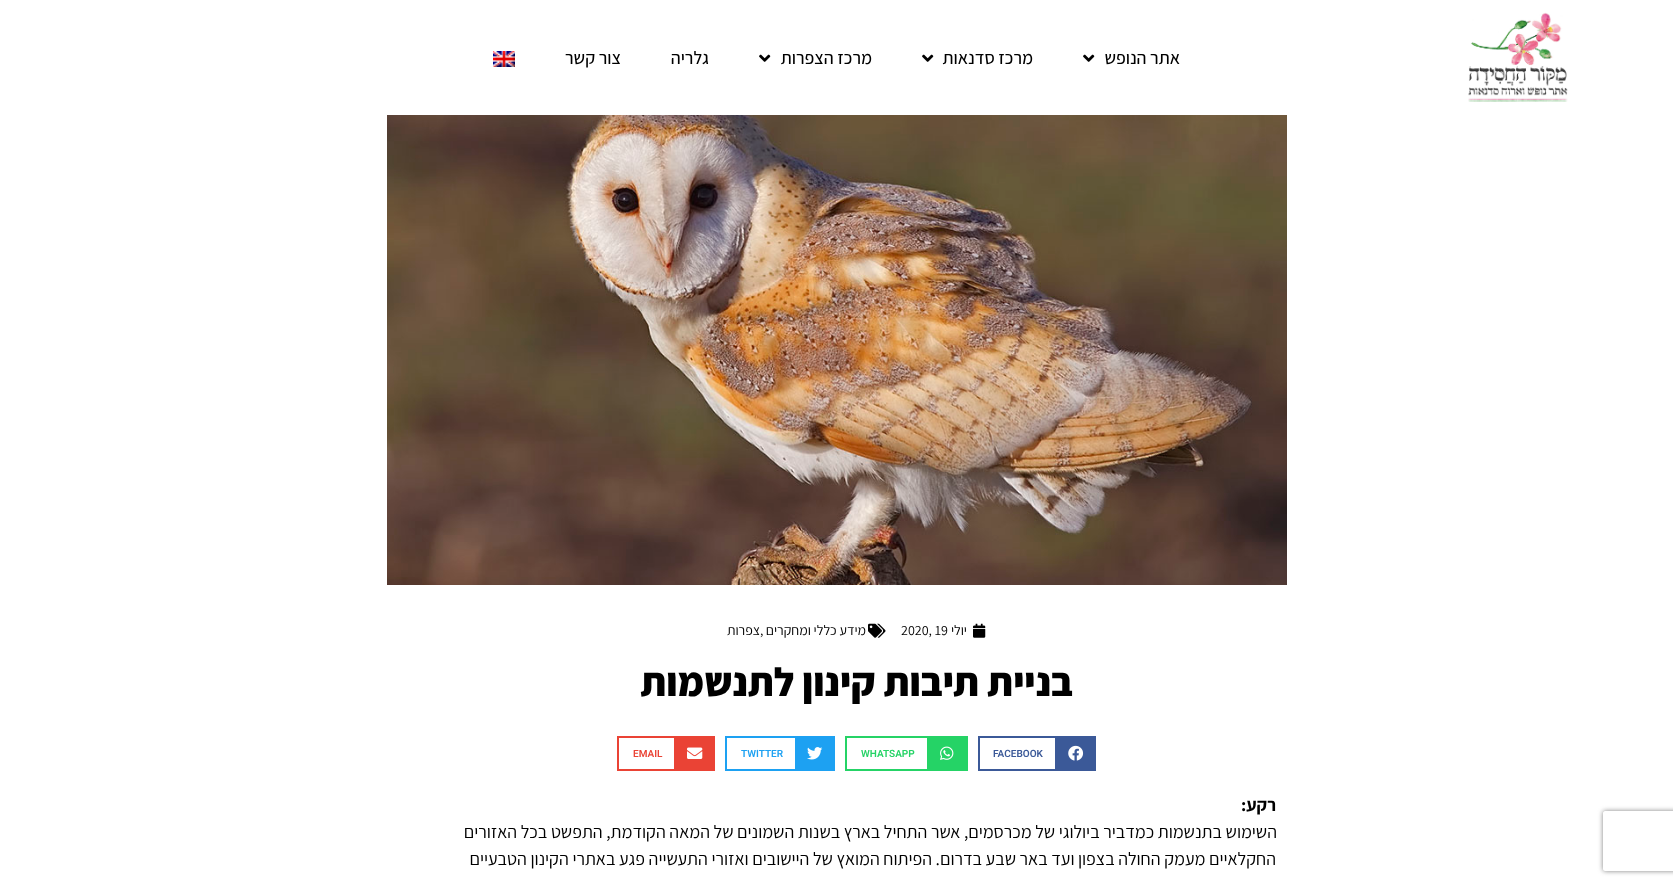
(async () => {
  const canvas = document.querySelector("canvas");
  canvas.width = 1673;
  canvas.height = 885;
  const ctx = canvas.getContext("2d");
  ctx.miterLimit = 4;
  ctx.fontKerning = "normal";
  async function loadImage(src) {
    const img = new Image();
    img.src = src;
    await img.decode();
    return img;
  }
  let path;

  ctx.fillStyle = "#ffffff";
  ctx.fillRect(0, 0, 1673, 885);
  ctx.drawImage(await loadImage("img/1.png"), 1468, 12, 100, 90);
  ctx.drawImage(await loadImage("img/2.png"), 1083, 54, 12, 8);
  ctx.drawImage(await loadImage("img/2.png"), 922, 54, 12, 8);
  ctx.drawImage(await loadImage("img/2.png"), 759, 54, 12, 8);
  ctx.drawImage(await loadImage("img/3.png"), 493, 51, 22, 16);
  ctx.save();
  path = new Path2D("M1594 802H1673V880H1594ZM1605 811H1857C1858 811 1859 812 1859 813V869C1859 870 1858 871 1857 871H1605C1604 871 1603 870 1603 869V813C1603 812 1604 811 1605 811Z");
  ctx.clip(path, "evenodd");
  ctx.fillStyle = "#808080";
  ctx.filter = "blur(2.5px)";
  ctx.beginPath();
  ctx.roundRect(1603, 811, 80, 60, 2);
  ctx.fill();
  ctx.filter = "none";
  ctx.restore();
  ctx.drawImage(await loadImage("img/4.png"), 387, 115, 900, 470);
  ctx.drawImage(await loadImage("img/5.png"), 973, 623, 13, 15);
  ctx.drawImage(await loadImage("img/6.png"), 868, 623, 18, 15);
  ctx.strokeStyle = "#3b5998";
  ctx.lineWidth = 2;
  ctx.strokeRect(979, 737, 116, 33);
  ctx.fillStyle = "#3b5998";
  ctx.fillRect(1055, 738, 39, 31);
  ctx.drawImage(await loadImage("img/7.png"), 1068, 745, 16, 16);
  ctx.strokeStyle = "#25d366";
  ctx.strokeRect(846, 737, 121, 33);
  ctx.fillStyle = "#25d366";
  ctx.fillRect(927, 738, 39, 31);
  ctx.drawImage(await loadImage("img/8.png"), 940, 746, 14, 14);
  ctx.strokeStyle = "#1da1f2";
  ctx.strokeRect(726, 737, 108, 33);
  ctx.fillStyle = "#1da1f2";
  ctx.fillRect(795, 738, 38, 31);
  ctx.drawImage(await loadImage("img/9.png"), 807, 747, 16, 13);
  ctx.strokeStyle = "#ea4335";
  ctx.strokeRect(618, 737, 96, 33);
  ctx.fillStyle = "#ea4335";
  ctx.fillRect(674, 738, 39, 31);
  ctx.drawImage(await loadImage("img/10.png"), 687, 747, 16, 12);
  ctx.direction = "rtl";
  ctx.font = "500 18px Assistant";
  ctx.fillStyle = "#000000";
  for (const [text, x, y] of [
    ["אתר הנופש", 1180, 64],
    ["מרכז סדנאות", 1033, 64],
    ["מרכז הצפרות", 872, 64],
    ["גלריה", 709, 64],
    ["צור קשר", 621, 64],
  ]) {
    ctx.fillText(text, x, y);
  }
  ctx.font = "14px Assistant";
  ctx.fillText("יולי", 967, 635);
  ctx.direction = "ltr";
  ctx.fillText("2020, 19", 901, 635);
  ctx.direction = "rtl";
  ctx.fillText("מידע כללי ומחקרים", 866, 635);
  ctx.direction = "ltr";
  ctx.fillText(",", 760, 635);
  ctx.direction = "rtl";
  ctx.fillText("צפרות", 760, 635);
  ctx.font = "800 40px Assistant";
  ctx.fillText("בניית תיבות קינון לתנשמות", 1073, 696);
  ctx.direction = "ltr";
  ctx.font = "600 10px Roboto";
  ctx.fillStyle = "#3b5998";
  ctx.fillText("FACEBOOK", 993, 757);
  ctx.fillStyle = "#25d366";
  ctx.fillText("WHATSAPP", 861, 757);
  ctx.fillStyle = "#1da1f2";
  ctx.fillText("TWITTER", 741, 757);
  ctx.fillStyle = "#ea4335";
  ctx.fillText("EMAIL", 633, 757);
  ctx.direction = "rtl";
  ctx.font = "bold 18px Assistant";
  ctx.fillStyle = "#000000";
  ctx.fillText("רקע:", 1276, 811);
  ctx.font = "18px Assistant";
  ctx.fillText("השימוש בתנשמות כמדביר ביולוגי של מכרסמים, אשר התחיל בארץ בשנות השמונים של המאה הקודמת, התפשט בכל האזורים", 1277, 838);
  ctx.fillText("החקלאיים מעמק החולה בצפון ועד באר שבע בדרום. הפיתוח המואץ של היישובים ואזורי התעשייה פגע באתרי הקינון הטבעיים", 1276, 865);
})();
